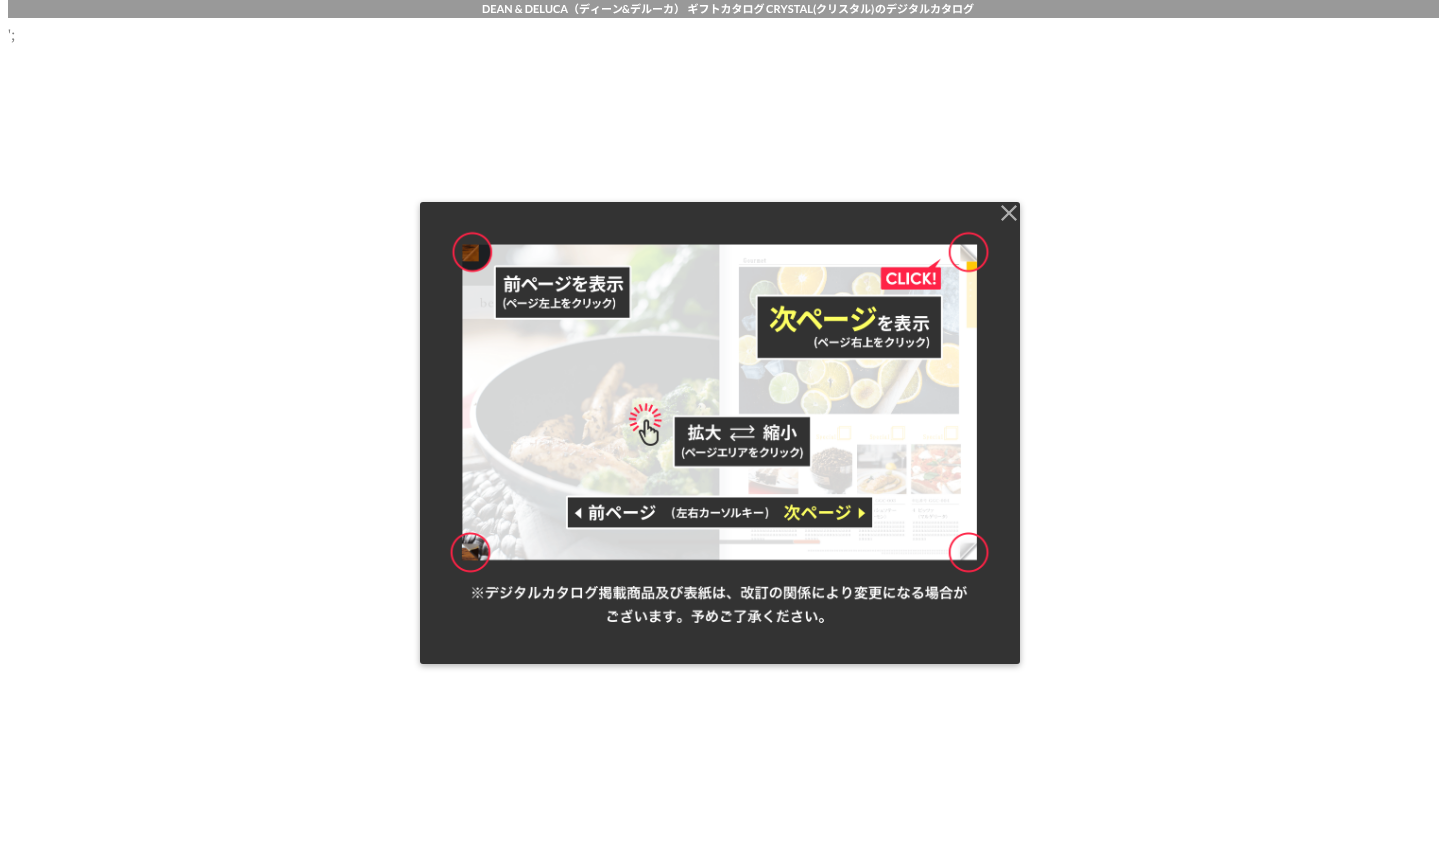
(async () => {
  const canvas = document.querySelector("canvas");
  canvas.width = 1439;
  canvas.height = 866;
  const ctx = canvas.getContext("2d");
  ctx.miterLimit = 4;
  ctx.fontKerning = "normal";
  async function loadImage(src) {
    const img = new Image();
    img.src = src;
    await img.decode();
    return img;
  }

  ctx.fillStyle = "#ffffff";
  ctx.fillRect(0, 0, 1439, 866);
  ctx.fillStyle = "#999999";
  ctx.fillRect(8, 0, 1431, 18);
  ctx.fillStyle = "rgba(0, 0, 0, 0.3)";
  ctx.filter = "blur(3px)";
  ctx.beginPath();
  ctx.roundRect(420, 204, 600, 462, 3);
  ctx.fill();
  ctx.filter = "none";
  ctx.fillStyle = "#333333";
  ctx.beginPath();
  ctx.roundRect(420, 202, 600, 462, 3);
  ctx.fill();
  ctx.drawImage(await loadImage("img/1.png"), 1001, 205, 16, 16);
  ctx.drawImage(await loadImage("img/2.png"), 449, 231, 541, 392);
  ctx.font = "bold 11px Lato";
  ctx.fillStyle = "#ffffff";
  ctx.fillText("DEAN & DELUCA", 482, 13);
  ctx.font = "bold 11px Noto Sans JP";
  ctx.fillText("（ディーン", 568, 13);
  ctx.font = "bold 11px Lato";
  ctx.fillText("&", 622, 13);
  ctx.font = "bold 11px Noto Sans JP";
  ctx.fillText("デルーカ） ギフトカタログ", 630, 13);
  ctx.font = "bold 11px Lato";
  ctx.fillText("CRYSTAL(", 766, 13);
  ctx.font = "bold 11px Noto Sans JP";
  ctx.fillText("クリスタル", 816, 13);
  ctx.font = "bold 11px Lato";
  ctx.fillText(")", 871, 13);
  ctx.font = "bold 11px Noto Sans JP";
  ctx.fillText("のデジタルカタログ", 875, 13);
  ctx.font = "16px Liberation Serif";
  ctx.fillStyle = "#808080";
  ctx.fillText("';", 8, 40);
})();
